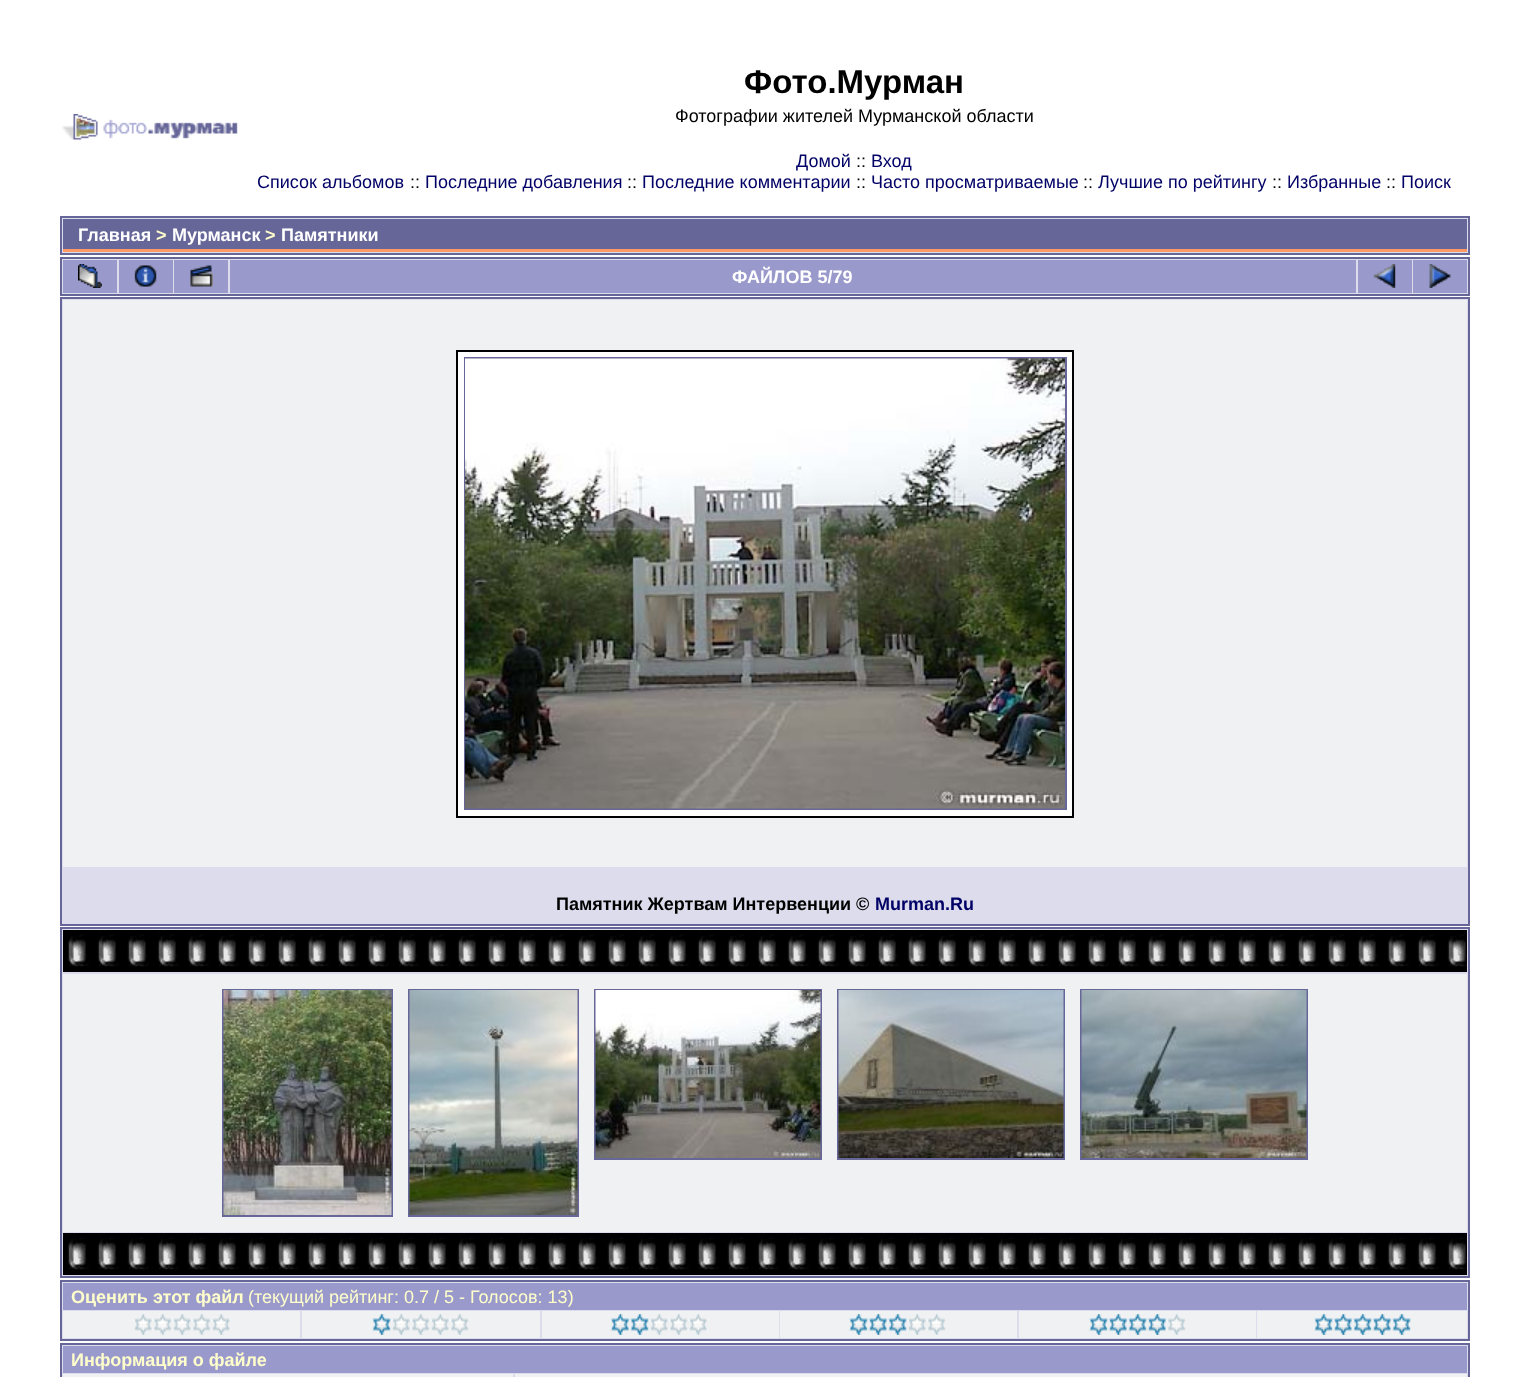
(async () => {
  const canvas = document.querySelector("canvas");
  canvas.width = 1530;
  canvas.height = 1377;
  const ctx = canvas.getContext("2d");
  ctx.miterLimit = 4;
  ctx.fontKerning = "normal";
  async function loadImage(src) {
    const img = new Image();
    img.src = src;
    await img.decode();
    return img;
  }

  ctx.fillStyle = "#ffffff";
  ctx.fillRect(0, 0, 1530, 1377);
  ctx.drawImage(await loadImage("img/1.png"), 62, 114, 176, 26);
  ctx.fillStyle = "#dcdcec";
  ctx.beginPath();
  ctx.rect(61, 217, 1408, 37);
  ctx.fill();
  ctx.strokeStyle = "#666699";
  ctx.lineWidth = 2;
  ctx.stroke();
  ctx.fillStyle = "#666699";
  ctx.fillRect(63, 219, 1404, 30);
  ctx.fillStyle = "#ff9966";
  ctx.fillRect(63, 249, 1404, 3);
  ctx.fillStyle = "#dcdcec";
  ctx.beginPath();
  ctx.rect(61, 258, 1408, 37);
  ctx.fill();
  ctx.stroke();
  ctx.fillStyle = "#9999cc";
  ctx.fillRect(63, 260, 54, 33);
  ctx.drawImage(await loadImage("img/2.png"), 78, 264, 24, 24);
  ctx.fillRect(119, 260, 54, 33);
  ctx.drawImage(await loadImage("img/3.png"), 134, 265, 23, 22);
  ctx.fillRect(174, 260, 54, 33);
  ctx.drawImage(await loadImage("img/4.png"), 190, 265, 23, 22);
  ctx.fillRect(230, 260, 1126, 33);
  ctx.fillRect(1358, 260, 54, 33);
  ctx.drawImage(await loadImage("img/5.png"), 1373, 264, 23, 24);
  ctx.fillRect(1413, 260, 54, 33);
  ctx.drawImage(await loadImage("img/6.png"), 1429, 264, 22, 24);
  ctx.fillStyle = "#dcdcec";
  ctx.beginPath();
  ctx.rect(61, 298, 1408, 627);
  ctx.fill();
  ctx.stroke();
  ctx.fillStyle = "#f0f1f3";
  ctx.fillRect(63, 300, 1404, 567);
  ctx.fillStyle = "#ffffff";
  ctx.beginPath();
  ctx.rect(457, 351, 616, 466);
  ctx.fill();
  ctx.strokeStyle = "#000000";
  ctx.stroke();
  ctx.strokeStyle = "#666699";
  ctx.strokeRect(465, 358, 601, 451);
  ctx.drawImage(await loadImage("img/7.png"), 465, 358, 600, 451);
  ctx.fillStyle = "#dcdcec";
  ctx.beginPath();
  ctx.rect(61, 928, 1408, 349);
  ctx.fill();
  ctx.stroke();
  ctx.drawImage(await loadImage("img/8.png"), 63, 930, 1404, 42);
  ctx.fillStyle = "#131313";
  ctx.fillRect(68, 946, 1, 12);
  ctx.fillStyle = "#f0f1f3";
  ctx.fillRect(63, 974, 1404, 258);
  ctx.strokeRect(223, 990, 169, 226);
  ctx.drawImage(await loadImage("img/9.png"), 223, 990, 169, 225);
  ctx.strokeRect(409, 990, 169, 226);
  ctx.drawImage(await loadImage("img/10.png"), 409, 990, 169, 225);
  ctx.strokeRect(595, 990, 226, 169);
  ctx.drawImage(await loadImage("img/11.png"), 595, 990, 226, 168);
  ctx.strokeRect(838, 990, 226, 169);
  ctx.drawImage(await loadImage("img/12.png"), 838, 990, 226, 168);
  ctx.strokeRect(1081, 990, 226, 169);
  ctx.drawImage(await loadImage("img/13.png"), 1081, 990, 226, 168);
  ctx.drawImage(await loadImage("img/14.png"), 63, 1233, 1404, 42);
  ctx.fillStyle = "#131313";
  ctx.fillRect(68, 1249, 1, 12);
  ctx.fillStyle = "#dcdcec";
  ctx.beginPath();
  ctx.rect(61, 1281, 1408, 59);
  ctx.fill();
  ctx.stroke();
  ctx.fillStyle = "#9999cc";
  ctx.fillRect(63, 1283, 1404, 27);
  ctx.fillStyle = "#f0f1f3";
  ctx.fillRect(63, 1311, 237, 27);
  ctx.drawImage(await loadImage("img/15.png"), 133, 1314, 98, 21);
  ctx.fillRect(302, 1311, 238, 27);
  ctx.drawImage(await loadImage("img/16.png"), 372, 1314, 97, 21);
  ctx.fillRect(542, 1311, 237, 27);
  ctx.drawImage(await loadImage("img/17.png"), 610, 1314, 98, 21);
  ctx.fillRect(780, 1311, 237, 27);
  ctx.drawImage(await loadImage("img/18.png"), 849, 1314, 97, 21);
  ctx.fillRect(1019, 1311, 237, 27);
  ctx.drawImage(await loadImage("img/19.png"), 1089, 1314, 97, 21);
  ctx.fillRect(1257, 1311, 210, 27);
  ctx.drawImage(await loadImage("img/20.png"), 1314, 1314, 98, 21);
  ctx.fillStyle = "#dcdcec";
  ctx.beginPath();
  ctx.rect(61, 1344, 1408, 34);
  ctx.fill();
  ctx.stroke();
  for (const [x, y, w, h, color] of [
    [63, 1346, 1404, 27, "#9999cc"],
    [63, 1374, 450, 3, "#f0f1f3"],
    [515, 1374, 952, 3, "#f0f1f3"],
  ]) {
    ctx.fillStyle = color;
    ctx.fillRect(x, y, w, h);
  }
  ctx.font = "bold 33px Liberation Sans";
  ctx.fillStyle = "#000000";
  ctx.fillText("Фото.Мурман", 744, 93);
  ctx.font = "18px Liberation Sans";
  ctx.fillText("Фотографии жителей Мурманской области", 675, 122);
  ctx.fillStyle = "#000066";
  ctx.fillText("Домой", 796, 167);
  ctx.fillStyle = "#000000";
  ctx.fillText("::", 856, 167);
  ctx.fillStyle = "#000066";
  ctx.fillText("Вход", 871, 167);
  ctx.fillText("Список альбомов", 257, 188);
  ctx.fillStyle = "#000000";
  ctx.fillText("::", 410, 188);
  ctx.fillStyle = "#000066";
  ctx.fillText("Последние добавления", 425, 188);
  ctx.fillStyle = "#000000";
  ctx.fillText("::", 627, 188);
  ctx.fillStyle = "#000066";
  ctx.fillText("Последние комментарии", 642, 188);
  ctx.fillStyle = "#000000";
  ctx.fillText("::", 856, 188);
  ctx.fillStyle = "#000066";
  ctx.fillText("Часто просматриваемые", 871, 188);
  ctx.fillStyle = "#000000";
  ctx.fillText("::", 1083, 188);
  ctx.fillStyle = "#000066";
  ctx.fillText("Лучшие по рейтингу", 1098, 188);
  ctx.fillStyle = "#000000";
  ctx.fillText("::", 1272, 188);
  ctx.fillStyle = "#000066";
  ctx.fillText("Избранные", 1287, 188);
  ctx.fillStyle = "#000000";
  ctx.fillText("::", 1386, 188);
  ctx.fillStyle = "#000066";
  ctx.fillText("Поиск", 1401, 188);
  ctx.font = "bold 18px Liberation Sans";
  ctx.fillStyle = "#ffffff";
  ctx.fillText("Главная", 78, 241);
  ctx.fillStyle = "#ffffcc";
  ctx.fillText(">", 156, 241);
  ctx.fillStyle = "#ffffff";
  ctx.fillText("Мурманск", 172, 241);
  ctx.fillStyle = "#ffffcc";
  ctx.fillText(">", 265, 241);
  ctx.fillStyle = "#ffffff";
  ctx.fillText("Памятники", 281, 241);
  ctx.fillText("ФАЙЛОВ 5/79", 732, 283);
  ctx.fillStyle = "#000000";
  ctx.fillText("Памятник Жертвам Интервенции ©", 556, 910);
  ctx.fillStyle = "#000066";
  ctx.fillText("Murman.Ru", 875, 910);
  ctx.fillStyle = "#ffffcc";
  ctx.fillText("Оценить этот файл", 71, 1303);
  ctx.font = "18px Liberation Sans";
  ctx.fillText("(текущий рейтинг: 0.7 / 5 - Голосов: 13)", 248, 1303);
  ctx.font = "bold 18px Liberation Sans";
  ctx.fillText("Информация о файле", 71, 1366);
})();
